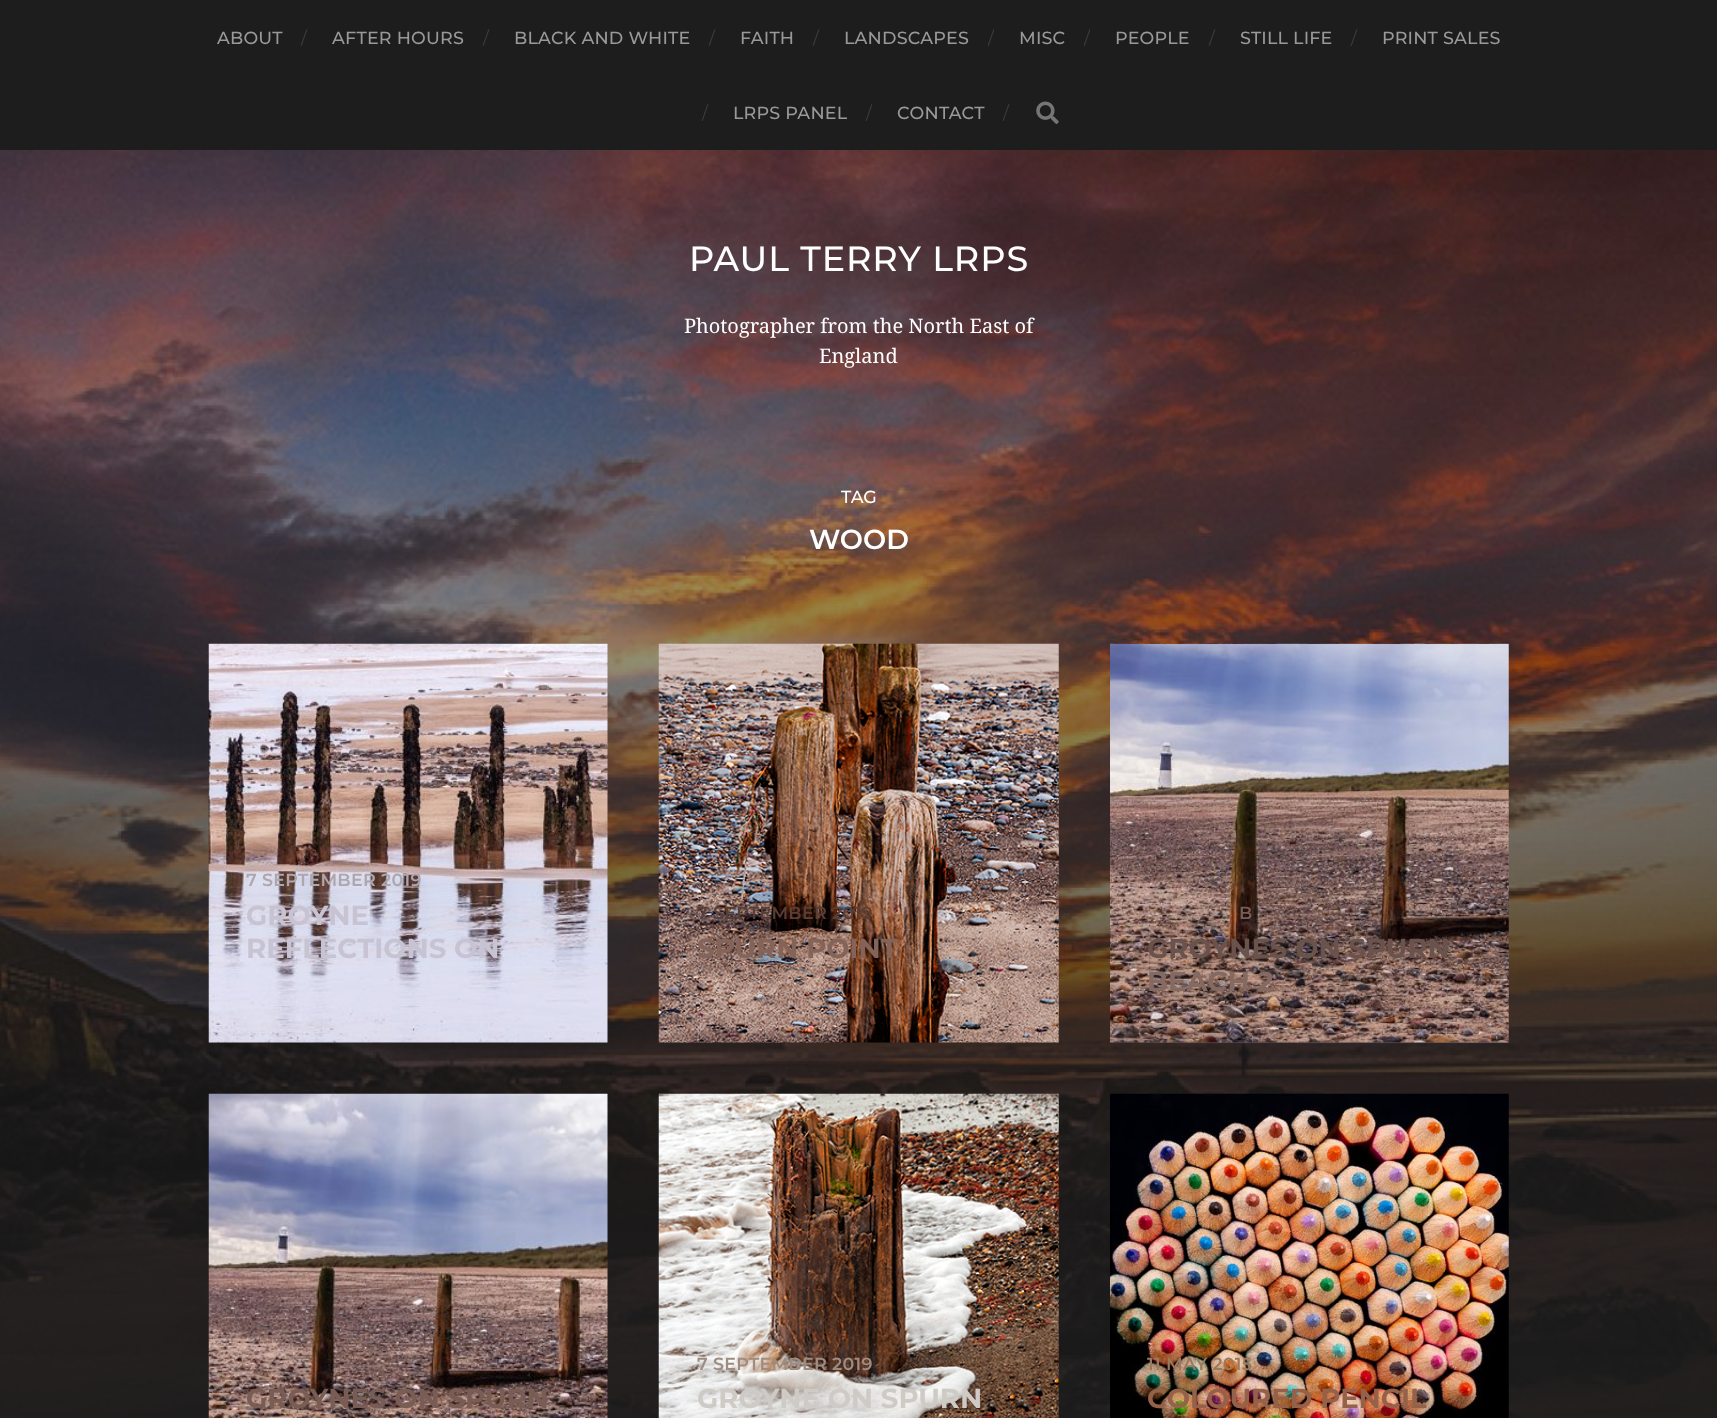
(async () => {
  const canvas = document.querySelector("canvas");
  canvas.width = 1717;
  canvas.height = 1418;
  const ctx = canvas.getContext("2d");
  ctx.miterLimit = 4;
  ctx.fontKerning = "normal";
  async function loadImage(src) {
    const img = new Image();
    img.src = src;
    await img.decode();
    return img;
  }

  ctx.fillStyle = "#1d1d1d";
  ctx.fillRect(0, 0, 1717, 1418);
  ctx.drawImage(await loadImage("img/1.png"), 1036, 101, 23, 23);
  ctx.drawImage(await loadImage("img/2.png"), 0, 150, 1717, 1268);
  ctx.drawImage(await loadImage("img/3.png"), 208, 643, 400, 400);
  ctx.drawImage(await loadImage("img/4.png"), 658, 643, 401, 400);
  ctx.drawImage(await loadImage("img/5.png"), 1110, 643, 399, 400);
  ctx.drawImage(await loadImage("img/6.png"), 208, 1093, 400, 325);
  ctx.drawImage(await loadImage("img/7.png"), 658, 1093, 401, 325);
  ctx.drawImage(await loadImage("img/8.png"), 1110, 1093, 399, 325);
  ctx.letterSpacing = "0.2px";
  ctx.font = "100 17.5px Montserrat";
  ctx.fillStyle = "#999999";
  ctx.fillText("ABOUT", 217, 44);
  ctx.letterSpacing = "0px";
  ctx.font = "100 17.5px 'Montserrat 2'";
  ctx.fillStyle = "#3d3d3d";
  ctx.fillText("/", 301, 44);
  ctx.letterSpacing = "0.2px";
  ctx.font = "100 17.5px Montserrat";
  ctx.fillStyle = "#999999";
  ctx.fillText("AFTER HOURS", 332, 44);
  ctx.letterSpacing = "0px";
  ctx.font = "100 17.5px 'Montserrat 2'";
  ctx.fillStyle = "#3d3d3d";
  ctx.fillText("/", 483, 44);
  ctx.letterSpacing = "0.2px";
  ctx.font = "100 17.5px Montserrat";
  ctx.fillStyle = "#999999";
  ctx.fillText("BLACK AND WHITE", 514, 44);
  ctx.letterSpacing = "0px";
  ctx.font = "100 17.5px 'Montserrat 2'";
  ctx.fillStyle = "#3d3d3d";
  ctx.fillText("/", 709, 44);
  ctx.letterSpacing = "0.2px";
  ctx.font = "100 17.5px Montserrat";
  ctx.fillStyle = "#999999";
  ctx.fillText("FAITH", 740, 44);
  ctx.letterSpacing = "0px";
  ctx.font = "100 17.5px 'Montserrat 2'";
  ctx.fillStyle = "#3d3d3d";
  ctx.fillText("/", 813, 44);
  ctx.letterSpacing = "0.2px";
  ctx.font = "100 17.5px Montserrat";
  ctx.fillStyle = "#999999";
  ctx.fillText("LANDSCAPES", 844, 44);
  ctx.letterSpacing = "0px";
  ctx.font = "100 17.5px 'Montserrat 2'";
  ctx.fillStyle = "#3d3d3d";
  ctx.fillText("/", 988, 44);
  ctx.letterSpacing = "0.2px";
  ctx.font = "100 17.5px Montserrat";
  ctx.fillStyle = "#999999";
  ctx.fillText("MISC", 1019, 44);
  ctx.letterSpacing = "0px";
  ctx.font = "100 17.5px 'Montserrat 2'";
  ctx.fillStyle = "#3d3d3d";
  ctx.fillText("/", 1084, 44);
  ctx.letterSpacing = "0.2px";
  ctx.font = "100 17.5px Montserrat";
  ctx.fillStyle = "#999999";
  ctx.fillText("PEOPLE", 1115, 44);
  ctx.letterSpacing = "0px";
  ctx.font = "100 17.5px 'Montserrat 2'";
  ctx.fillStyle = "#3d3d3d";
  ctx.fillText("/", 1209, 44);
  ctx.letterSpacing = "0.2px";
  ctx.font = "100 17.5px Montserrat";
  ctx.fillStyle = "#999999";
  ctx.fillText("STILL LIFE", 1240, 44);
  ctx.letterSpacing = "0px";
  ctx.font = "100 17.5px 'Montserrat 2'";
  ctx.fillStyle = "#3d3d3d";
  ctx.fillText("/", 1351, 44);
  ctx.letterSpacing = "0.2px";
  ctx.font = "100 17.5px Montserrat";
  ctx.fillStyle = "#999999";
  ctx.fillText("PRINT SALES", 1382, 44);
  ctx.letterSpacing = "0px";
  ctx.font = "100 17.5px 'Montserrat 2'";
  ctx.fillStyle = "#3d3d3d";
  ctx.fillText("/", 702, 119);
  ctx.letterSpacing = "0.2px";
  ctx.font = "100 17.5px Montserrat";
  ctx.fillStyle = "#999999";
  ctx.fillText("LRPS PANEL", 733, 119);
  ctx.letterSpacing = "0px";
  ctx.font = "100 17.5px 'Montserrat 2'";
  ctx.fillStyle = "#3d3d3d";
  ctx.fillText("/", 866, 119);
  ctx.letterSpacing = "0.2px";
  ctx.font = "100 17.5px Montserrat";
  ctx.fillStyle = "#999999";
  ctx.fillText("CONTACT", 897, 119);
  ctx.letterSpacing = "0px";
  ctx.font = "100 17.5px 'Montserrat 2'";
  ctx.fillStyle = "#3d3d3d";
  ctx.fillText("/", 1003, 119);
  ctx.letterSpacing = "0.9px";
  ctx.font = "100 35px Montserrat";
  ctx.fillStyle = "#ffffff";
  ctx.fillText("PAUL TERRY LRPS", 689, 271);
  ctx.letterSpacing = "0px";
  ctx.font = "20px Droid Serif";
  ctx.fillText("Photographer from the North East of", 684, 333);
  ctx.fillText("England", 819, 363);
  ctx.font = "100 17.5px Montserrat";
  ctx.fillText("TAG", 841, 503);
  ctx.font = "100 27.5px 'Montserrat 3'";
  ctx.fillText("WOOD", 809, 549);
  ctx.letterSpacing = "0.25px";
  ctx.font = "100 17.5px 'Montserrat 3'";
  ctx.fillStyle = "#aea6ae";
  ctx.fillText("7 SEPTEMBER 2019", 246, 886);
  ctx.letterSpacing = "0px";
  ctx.font = "100 27.5px 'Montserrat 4'";
  ctx.fillStyle = "#c7c3d2";
  ctx.fillText("GROYNE", 246, 925);
  ctx.fillText("REFLECTIONS ON", 246, 958);
  ctx.letterSpacing = "0.25px";
  ctx.font = "100 17.5px 'Montserrat 3'";
  ctx.fillStyle = "#583e36";
  ctx.fillText("7 SEPTEMBER 2019", 697, 919);
  ctx.letterSpacing = "0px";
  ctx.font = "100 27.5px 'Montserrat 4'";
  ctx.fillStyle = "#846458";
  ctx.fillText("SPURN POINT", 697, 958);
  ctx.letterSpacing = "0.25px";
  ctx.font = "100 17.5px 'Montserrat 3'";
  ctx.fillStyle = "#795d55";
  ctx.fillText("B", 1239, 919);
  ctx.letterSpacing = "0px";
  ctx.font = "100 27.5px 'Montserrat 4'";
  ctx.fillStyle = "#6b534d";
  ctx.fillText("GROYNES ON SPURN", 1147, 958);
  ctx.fillStyle = "#856a62";
  ctx.fillText("BEACH 2", 1147, 991);
  ctx.fillStyle = "#795d55";
  ctx.fillText("GROYNES ON SPURN", 246, 1408);
  ctx.letterSpacing = "0.25px";
  ctx.font = "100 17.5px 'Montserrat 3'";
  ctx.fillStyle = "#9f8c81";
  ctx.fillText("7 SEPTEMBER 2019", 697, 1370);
  ctx.letterSpacing = "0px";
  ctx.font = "100 27.5px 'Montserrat 4'";
  ctx.fillStyle = "#cecac6";
  ctx.fillText("GROYNE ON SPURN", 697, 1408);
  ctx.letterSpacing = "0.25px";
  ctx.font = "100 17.5px 'Montserrat 3'";
  ctx.fillStyle = "#9b795e";
  ctx.fillText("11 MAY 2015", 1147, 1370);
  ctx.letterSpacing = "0px";
  ctx.font = "100 27.5px 'Montserrat 4'";
  ctx.fillStyle = "#956148";
  ctx.fillText("COLOURED PENCIL", 1147, 1408);
})();
